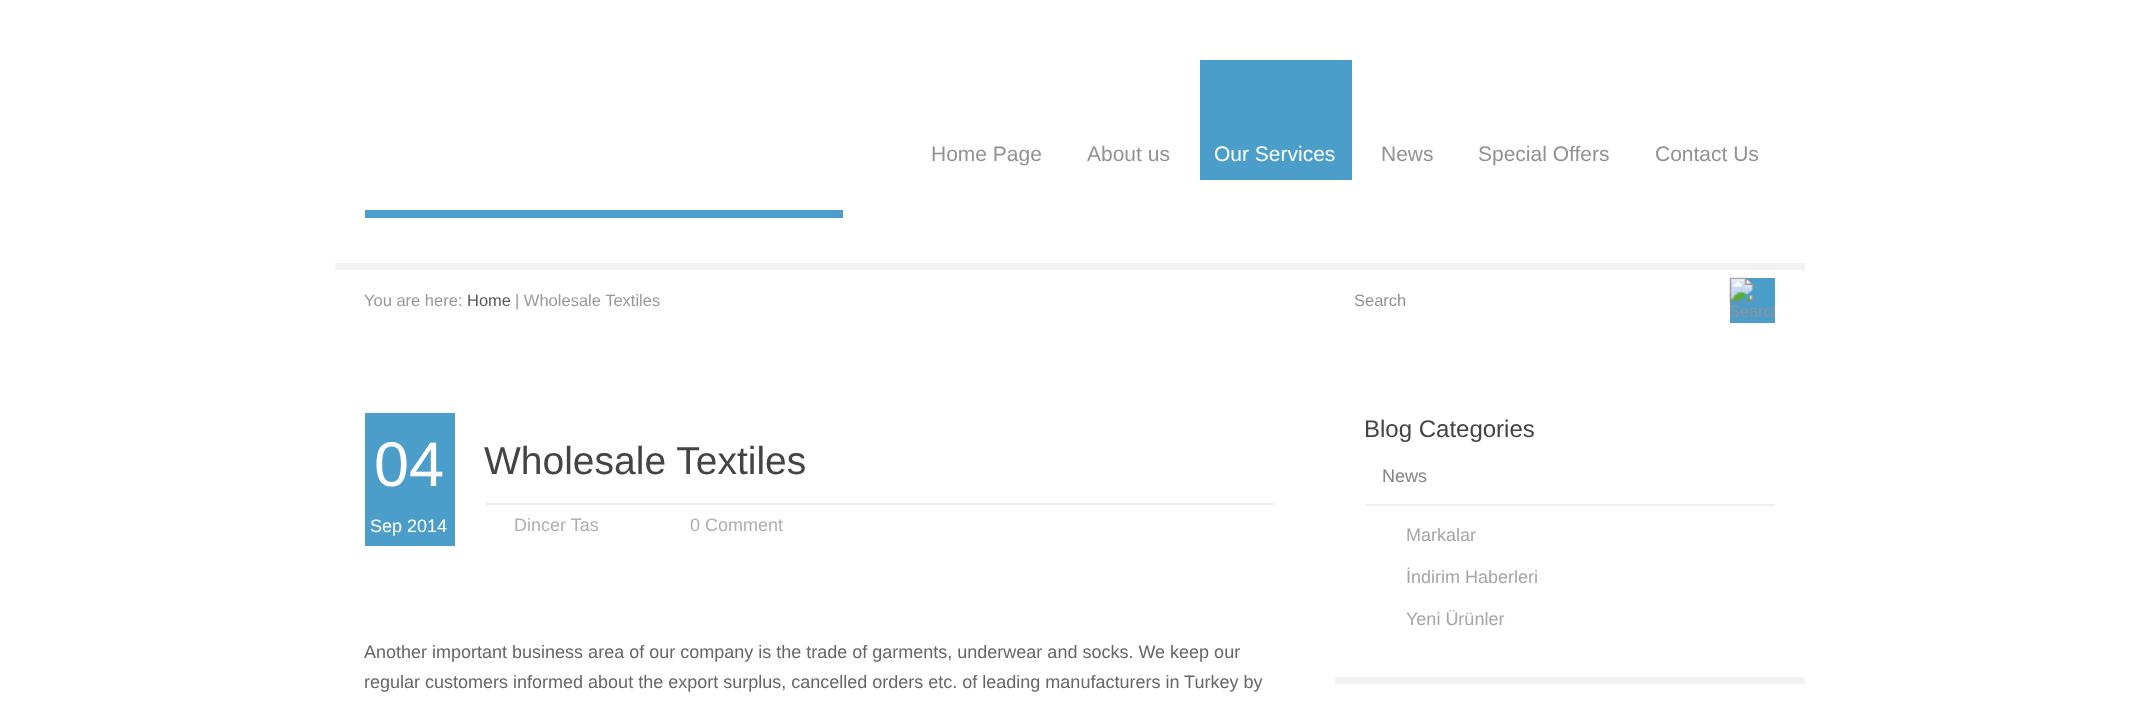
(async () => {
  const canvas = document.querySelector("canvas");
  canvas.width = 2137;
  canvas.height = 703;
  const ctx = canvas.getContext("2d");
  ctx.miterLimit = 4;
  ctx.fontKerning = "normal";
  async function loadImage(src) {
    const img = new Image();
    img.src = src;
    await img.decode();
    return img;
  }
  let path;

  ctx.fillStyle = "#ffffff";
  ctx.fillRect(0, 0, 2137, 703);
  for (const [x, y, w, h, color] of [
    [1200, 60, 152, 120, "#4b9ec9"],
    [365, 210, 478, 8, "#4b9ec9"],
    [335, 263, 1470, 7, "#f2f2f2"],
    [1730, 278, 45, 45, "#4b9ec9"],
  ]) {
    ctx.fillStyle = color;
    ctx.fillRect(x, y, w, h);
  }
  ctx.drawImage(await loadImage("img/1.png"), 1729, 277, 46, 40);
  ctx.fillRect(365, 413, 90, 133);
  ctx.fillStyle = "#eeeeee";
  ctx.fillRect(485, 503, 789, 2);
  ctx.fillStyle = "#f2f2f2";
  path = new Path2D("M1335 676V684H1805V390H1804V676Z");
  ctx.fill(path);
  ctx.fillStyle = "#ffffff";
  ctx.fillRect(1335, 390, 470, 287);
  ctx.fillStyle = "#f0f0f0";
  ctx.fillRect(1365, 504, 410, 2);
  ctx.font = "21px Liberation Sans";
  ctx.fillStyle = "#929292";
  ctx.fillText("Home Page", 931, 161);
  ctx.fillText("About us", 1087, 161);
  ctx.fillStyle = "#ffffff";
  ctx.fillText("Our Services", 1214, 161);
  ctx.fillStyle = "#929292";
  for (const [text, x, y] of [
    ["News", 1381, 161],
    ["Special Offers", 1478, 161],
    ["Contact Us", 1655, 161],
  ]) {
    ctx.fillText(text, x, y);
  }
  ctx.font = "16.5px Liberation Sans";
  ctx.fillStyle = "#999999";
  ctx.fillText("You are here:", 364, 306);
  ctx.fillStyle = "#595959";
  ctx.fillText("Home", 467, 306);
  ctx.fillStyle = "#999999";
  ctx.fillText("| Wholesale Textiles", 515, 306);
  ctx.fillStyle = "#929292";
  ctx.fillText("Search", 1354, 306);
  ctx.font = "63px Liberation Sans";
  ctx.fillStyle = "#ffffff";
  ctx.fillText("04", 374, 486);
  ctx.font = "18px Liberation Sans";
  ctx.fillText("Sep 2014", 370, 532);
  ctx.font = "39px Liberation Sans";
  ctx.fillStyle = "#444444";
  ctx.fillText("Wholesale Textiles", 484, 474);
  ctx.font = "18px Liberation Sans";
  ctx.fillStyle = "#afafaf";
  ctx.fillText("Dincer Tas", 514, 531);
  ctx.fillText("0 Comment", 690, 531);
  ctx.fillStyle = "#666666";
  ctx.fillText("Another important business area of our company is the trade of garments, underwear and socks. We keep our", 364, 658);
  ctx.fillText("regular customers informed about the export surplus, cancelled orders etc. of leading manufacturers in Turkey by", 364, 688);
  ctx.font = "24px Liberation Sans";
  ctx.fillStyle = "#444444";
  ctx.fillText("Blog Categories", 1364, 437);
  ctx.font = "18px Liberation Sans";
  ctx.fillStyle = "#848484";
  ctx.fillText("News", 1382, 482);
  ctx.fillStyle = "#a6a6a6";
  for (const [text, x, y] of [
    ["Markalar", 1406, 541],
    ["İndirim Haberleri", 1406, 583],
    ["Yeni Ürünler", 1406, 625],
  ]) {
    ctx.fillText(text, x, y);
  }
})();
